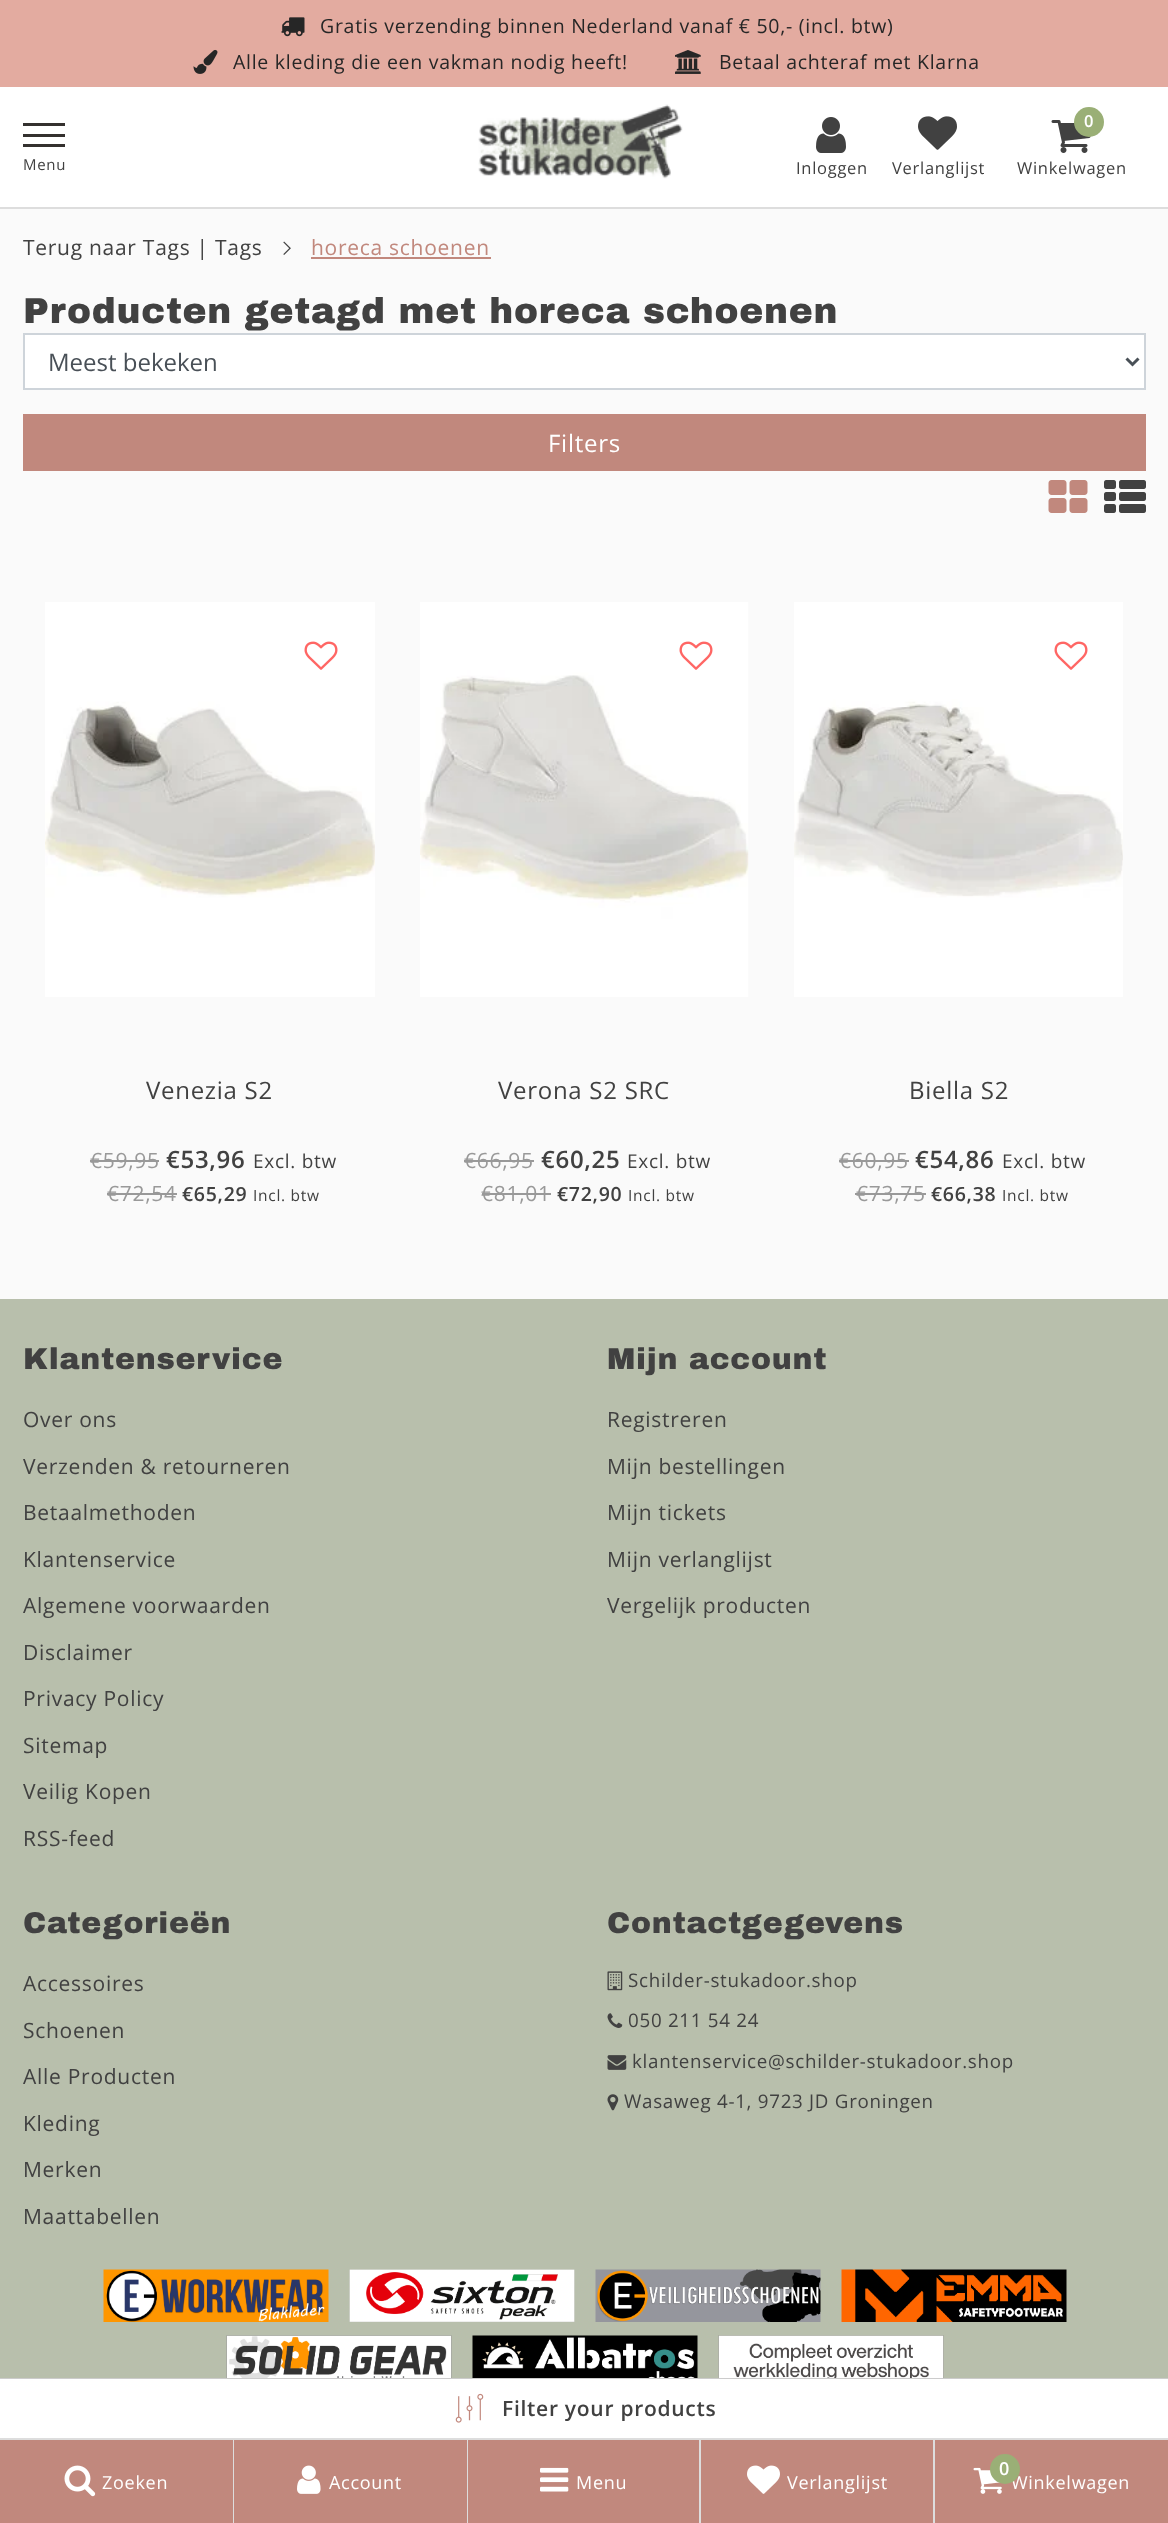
(async () => {
  const canvas = document.querySelector("canvas");
  canvas.width = 1168;
  canvas.height = 2523;
  const ctx = canvas.getContext("2d");
  ctx.miterLimit = 4;
  ctx.fontKerning = "normal";
  async function loadImage(src) {
    const img = new Image();
    img.src = src;
    await img.decode();
    return img;
  }
  let path;

  ctx.fillStyle = "#fafafa";
  ctx.fillRect(0, 0, 1168, 2523);
  for (const [x, y, w, h, color] of [
    [0, 87, 1168, 120, "#ffffff"],
    [0, 207, 1168, 2, "#dddddd"],
    [0, 0, 1168, 87, "#e3aba0"],
  ]) {
    ctx.fillStyle = color;
    ctx.fillRect(x, y, w, h);
  }
  ctx.drawImage(await loadImage("img/1.png"), 281, 17, 24, 20);
  ctx.drawImage(await loadImage("img/2.png"), 193, 49, 25, 25);
  ctx.drawImage(await loadImage("img/3.png"), 675, 50, 26, 24);
  for (const [x, y, w, h, color] of [
    [23, 123, 42, 3, "#34312f"],
    [23, 134, 42, 3, "#34312f"],
    [23, 144, 42, 3, "#34312f"],
  ]) {
    ctx.fillStyle = color;
    ctx.fillRect(x, y, w, h);
  }
  ctx.drawImage(await loadImage("img/4.png"), 478, 104, 205, 75);
  ctx.drawImage(await loadImage("img/5.png"), 816, 117, 30, 36);
  ctx.drawImage(await loadImage("img/6.png"), 918, 116, 39, 34);
  ctx.drawImage(await loadImage("img/7.png"), 1051, 120, 40, 33);
  ctx.fillStyle = "#9aaf76";
  ctx.beginPath();
  ctx.arc(1089, 122, 15, 0, Math.PI * 2);
  ctx.fill();
  ctx.drawImage(await loadImage("img/8.png"), 283, 241, 8, 14);
  ctx.fillStyle = "#c1887d";
  ctx.fillRect(311, 257, 180, 2);
  ctx.fillStyle = "#ffffff";
  ctx.beginPath();
  ctx.rect(24, 334, 1121, 55);
  ctx.fill();
  ctx.strokeStyle = "#ced4da";
  ctx.lineWidth = 2;
  ctx.stroke();
  path = new Path2D("M1126.5 358.5L1132.5 364.5L1138.5 358.5");
  ctx.strokeStyle = "#495057";
  ctx.lineWidth = 3;
  ctx.stroke(path);
  ctx.fillStyle = "#c1887d";
  ctx.fillRect(23, 414, 1123, 57);
  ctx.drawImage(await loadImage("img/9.png"), 1048, 480, 40, 33);
  ctx.drawImage(await loadImage("img/10.png"), 1104, 480, 42, 33);
  ctx.drawImage(await loadImage("img/11.png"), 45, 602, 330, 395);
  ctx.drawImage(await loadImage("img/12.png"), 304, 641, 34, 29);
  ctx.fillStyle = "#999999";
  ctx.fillRect(90, 1160, 69, 2);
  ctx.fillRect(107, 1193, 70, 2);
  ctx.drawImage(await loadImage("img/13.png"), 420, 602, 329, 395);
  ctx.drawImage(await loadImage("img/12.png"), 679, 641, 34, 29);
  ctx.fillRect(464, 1160, 70, 2);
  ctx.fillRect(482, 1193, 69, 2);
  ctx.drawImage(await loadImage("img/14.png"), 794, 602, 329, 395);
  ctx.drawImage(await loadImage("img/12.png"), 1054, 641, 34, 29);
  for (const [x, y, w, h, color] of [
    [839, 1160, 70, 2, "#999999"],
    [855, 1193, 71, 2, "#999999"],
    [0, 1299, 1168, 1079, "#b8bfac"],
  ]) {
    ctx.fillStyle = color;
    ctx.fillRect(x, y, w, h);
  }
  ctx.drawImage(await loadImage("img/15.png"), 607, 1971, 16, 20);
  ctx.drawImage(await loadImage("img/16.png"), 607, 2013, 16, 15);
  ctx.drawImage(await loadImage("img/17.png"), 607, 2055, 20, 15);
  ctx.drawImage(await loadImage("img/18.png"), 607, 2094, 12, 17);
  ctx.drawImage(await loadImage("img/19.png"), 103, 2269, 226, 53);
  ctx.drawImage(await loadImage("img/20.png"), 349, 2269, 226, 53);
  ctx.drawImage(await loadImage("img/21.png"), 595, 2269, 226, 53);
  ctx.drawImage(await loadImage("img/22.png"), 841, 2269, 226, 53);
  ctx.drawImage(await loadImage("img/23.png"), 226, 2335, 226, 43);
  ctx.drawImage(await loadImage("img/24.png"), 472, 2335, 226, 43);
  ctx.drawImage(await loadImage("img/25.png"), 718, 2335, 226, 43);
  ctx.fillStyle = "#cccccc";
  ctx.fillRect(0, 2378, 1168, 1);
  ctx.fillStyle = "#ffffff";
  ctx.fillRect(0, 2379, 1168, 59);
  ctx.drawImage(await loadImage("img/26.png"), 455, 2393, 29, 30);
  for (const [x, y, w, h, color] of [
    [0, 2440, 233, 83, "#c1887d"],
    [0, 2438, 1168, 2, "#dddddd"],
    [233, 2438, 1, 85, "#dddddd"],
  ]) {
    ctx.fillStyle = color;
    ctx.fillRect(x, y, w, h);
  }
  ctx.drawImage(await loadImage("img/27.png"), 64, 2465, 32, 32);
  ctx.fillStyle = "#c1887d";
  ctx.fillRect(234, 2440, 233, 83);
  ctx.fillStyle = "#dddddd";
  ctx.fillRect(467, 2438, 1, 85);
  ctx.drawImage(await loadImage("img/28.png"), 297, 2465, 24, 29);
  ctx.fillStyle = "#c1887d";
  ctx.fillRect(468, 2440, 231, 83);
  ctx.fillStyle = "#dddddd";
  ctx.fillRect(699, 2438, 2, 85);
  ctx.drawImage(await loadImage("img/29.png"), 540, 2467, 29, 25);
  ctx.fillStyle = "#c1887d";
  ctx.fillRect(701, 2440, 232, 83);
  ctx.fillStyle = "#dddddd";
  ctx.fillRect(933, 2438, 2, 85);
  ctx.drawImage(await loadImage("img/30.png"), 747, 2465, 33, 29);
  ctx.fillStyle = "#c1887d";
  ctx.fillRect(935, 2440, 233, 83);
  ctx.drawImage(await loadImage("img/31.png"), 973, 2467, 29, 27);
  ctx.letterSpacing = "0.72px";
  ctx.font = "19.5px Open Sans";
  ctx.fillStyle = "#262626";
  for (const [text, x, y] of [
    ["Gratis verzending binnen Nederland vanaf € 50,- (incl. btw)", 320, 33],
    ["Alle kleding die een vakman nodig heeft!", 233, 69],
    ["Betaal achteraf met Klarna", 719, 69],
  ]) {
    ctx.fillText(text, x, y);
  }
  ctx.font = "15px Open Sans";
  ctx.fillStyle = "#414141";
  ctx.fillText("Menu", 23, 170);
  ctx.font = "16.5px Open Sans";
  ctx.fillText("Inloggen", 796, 174);
  ctx.fillText("Verlanglijst", 892, 174);
  ctx.font = "600 16.5px Open Sans";
  ctx.fillStyle = "#ffffff";
  ctx.fillText("0", 1084, 127);
  ctx.font = "16.5px Open Sans";
  ctx.fillStyle = "#414141";
  ctx.fillText("Winkelwagen", 1017, 174);
  ctx.font = "21px Open Sans";
  ctx.fillText("Terug naar Tags | Tags", 23, 255);
  ctx.fillStyle = "#c1887d";
  ctx.fillText("horeca schoenen", 311, 255);
  ctx.font = "900 36px Archivo Black";
  ctx.fillStyle = "#414141";
  ctx.fillText("Producten getagd met horeca schoenen", 23, 323);
  ctx.letterSpacing = "0px";
  ctx.font = "24px Open Sans";
  ctx.fillStyle = "#495057";
  ctx.fillText("Meest bekeken", 48, 371);
  ctx.letterSpacing = "0.72px";
  ctx.fillStyle = "#ffffff";
  ctx.fillText("Filters", 548, 452);
  ctx.fillStyle = "#414141";
  ctx.fillText("Venezia S2", 146, 1099);
  ctx.font = "21px Open Sans";
  ctx.fillStyle = "#999999";
  ctx.fillText("€59,95", 90, 1168);
  ctx.font = "600 24px Open Sans";
  ctx.fillStyle = "#414141";
  ctx.fillText("€53,96", 166, 1168);
  ctx.font = "19px Open Sans";
  ctx.fillText("Excl. btw", 253, 1168);
  ctx.font = "21px Open Sans";
  ctx.fillStyle = "#999999";
  ctx.fillText("€72,54", 107, 1201);
  ctx.font = "600 19.5px Open Sans";
  ctx.fillStyle = "#414141";
  ctx.fillText("€65,29", 182, 1201);
  ctx.font = "15.5px Open Sans";
  ctx.fillText("Incl. btw", 253, 1201);
  ctx.font = "24px Open Sans";
  ctx.fillText("Verona S2 SRC", 498, 1099);
  ctx.font = "21px Open Sans";
  ctx.fillStyle = "#999999";
  ctx.fillText("€66,95", 464, 1168);
  ctx.font = "600 24px Open Sans";
  ctx.fillStyle = "#414141";
  ctx.fillText("€60,25", 541, 1168);
  ctx.font = "19px Open Sans";
  ctx.fillText("Excl. btw", 627, 1168);
  ctx.font = "21px Open Sans";
  ctx.fillStyle = "#999999";
  ctx.fillText("€81,01", 481, 1201);
  ctx.font = "600 19.5px Open Sans";
  ctx.fillStyle = "#414141";
  ctx.fillText("€72,90", 557, 1201);
  ctx.font = "15.5px Open Sans";
  ctx.fillText("Incl. btw", 628, 1201);
  ctx.font = "24px Open Sans";
  ctx.fillText("Biella S2", 909, 1099);
  ctx.font = "21px Open Sans";
  ctx.fillStyle = "#999999";
  ctx.fillText("€60,95", 839, 1168);
  ctx.font = "600 24px Open Sans";
  ctx.fillStyle = "#414141";
  ctx.fillText("€54,86", 915, 1168);
  ctx.font = "19px Open Sans";
  ctx.fillText("Excl. btw", 1002, 1168);
  ctx.font = "21px Open Sans";
  ctx.fillStyle = "#999999";
  ctx.fillText("€73,75", 856, 1201);
  ctx.font = "600 19.5px Open Sans";
  ctx.fillStyle = "#414141";
  ctx.fillText("€66,38", 931, 1201);
  ctx.font = "15.5px Open Sans";
  ctx.fillText("Incl. btw", 1002, 1201);
  ctx.font = "900 30px Archivo Black";
  ctx.fillText("Klantenservice", 23, 1369);
  ctx.font = "21px Open Sans";
  for (const [text, x, y] of [
    ["Over ons", 23, 1427],
    ["Verzenden & retourneren", 23, 1474],
    ["Betaalmethoden", 23, 1520],
    ["Klantenservice", 23, 1567],
    ["Algemene voorwaarden", 23, 1613],
    ["Disclaimer", 23, 1660],
    ["Privacy Policy", 23, 1706],
    ["Sitemap", 23, 1753],
    ["Veilig Kopen", 23, 1799],
    ["RSS-feed", 23, 1846],
  ]) {
    ctx.fillText(text, x, y);
  }
  ctx.font = "900 30px Archivo Black";
  ctx.fillText("Mijn account", 607, 1369);
  ctx.font = "21px Open Sans";
  for (const [text, x, y] of [
    ["Registreren", 607, 1427],
    ["Mijn bestellingen", 607, 1474],
    ["Mijn tickets", 607, 1520],
    ["Mijn verlanglijst", 607, 1567],
    ["Vergelijk producten", 607, 1613],
  ]) {
    ctx.fillText(text, x, y);
  }
  ctx.font = "900 30px Archivo Black";
  ctx.fillText("Categorieën", 23, 1933);
  ctx.font = "21px Open Sans";
  for (const [text, x, y] of [
    ["Accessoires", 23, 1991],
    ["Schoenen", 23, 2038],
    ["Alle Producten", 23, 2084],
    ["Kleding", 23, 2131],
    ["Merken", 23, 2177],
    ["Maattabellen", 23, 2224],
  ]) {
    ctx.fillText(text, x, y);
  }
  ctx.font = "900 30px Archivo Black";
  ctx.fillText("Contactgegevens", 607, 1933);
  ctx.font = "18.75px Open Sans";
  for (const [text, x, y] of [
    ["Schilder-stukadoor.shop", 628, 1987],
    ["050 211 54 24", 628, 2027],
    ["klantenservice@schilder-stukadoor.shop", 632, 2068],
    ["Wasaweg 4-1, 9723 JD Groningen", 624, 2108],
  ]) {
    ctx.fillText(text, x, y);
  }
  ctx.font = "600 21px Open Sans";
  ctx.fillText("Filter your products", 502, 2416);
  ctx.font = "18px Open Sans";
  ctx.fillStyle = "#ffffff";
  for (const [text, x, y] of [
    ["Zoeken", 102, 2489],
    ["Account", 329, 2489],
    ["Menu", 576, 2489],
    ["Verlanglijst", 787, 2489],
    ["Winkelwagen", 1011, 2489],
  ]) {
    ctx.fillText(text, x, y);
  }
  ctx.fillStyle = "#9aaf76";
  ctx.beginPath();
  ctx.arc(1005, 2469, 15, 0, Math.PI * 2);
  ctx.fill();
  ctx.font = "600 18px Open Sans";
  ctx.fillStyle = "#ffffff";
  ctx.fillText("0", 999, 2475);
})();
